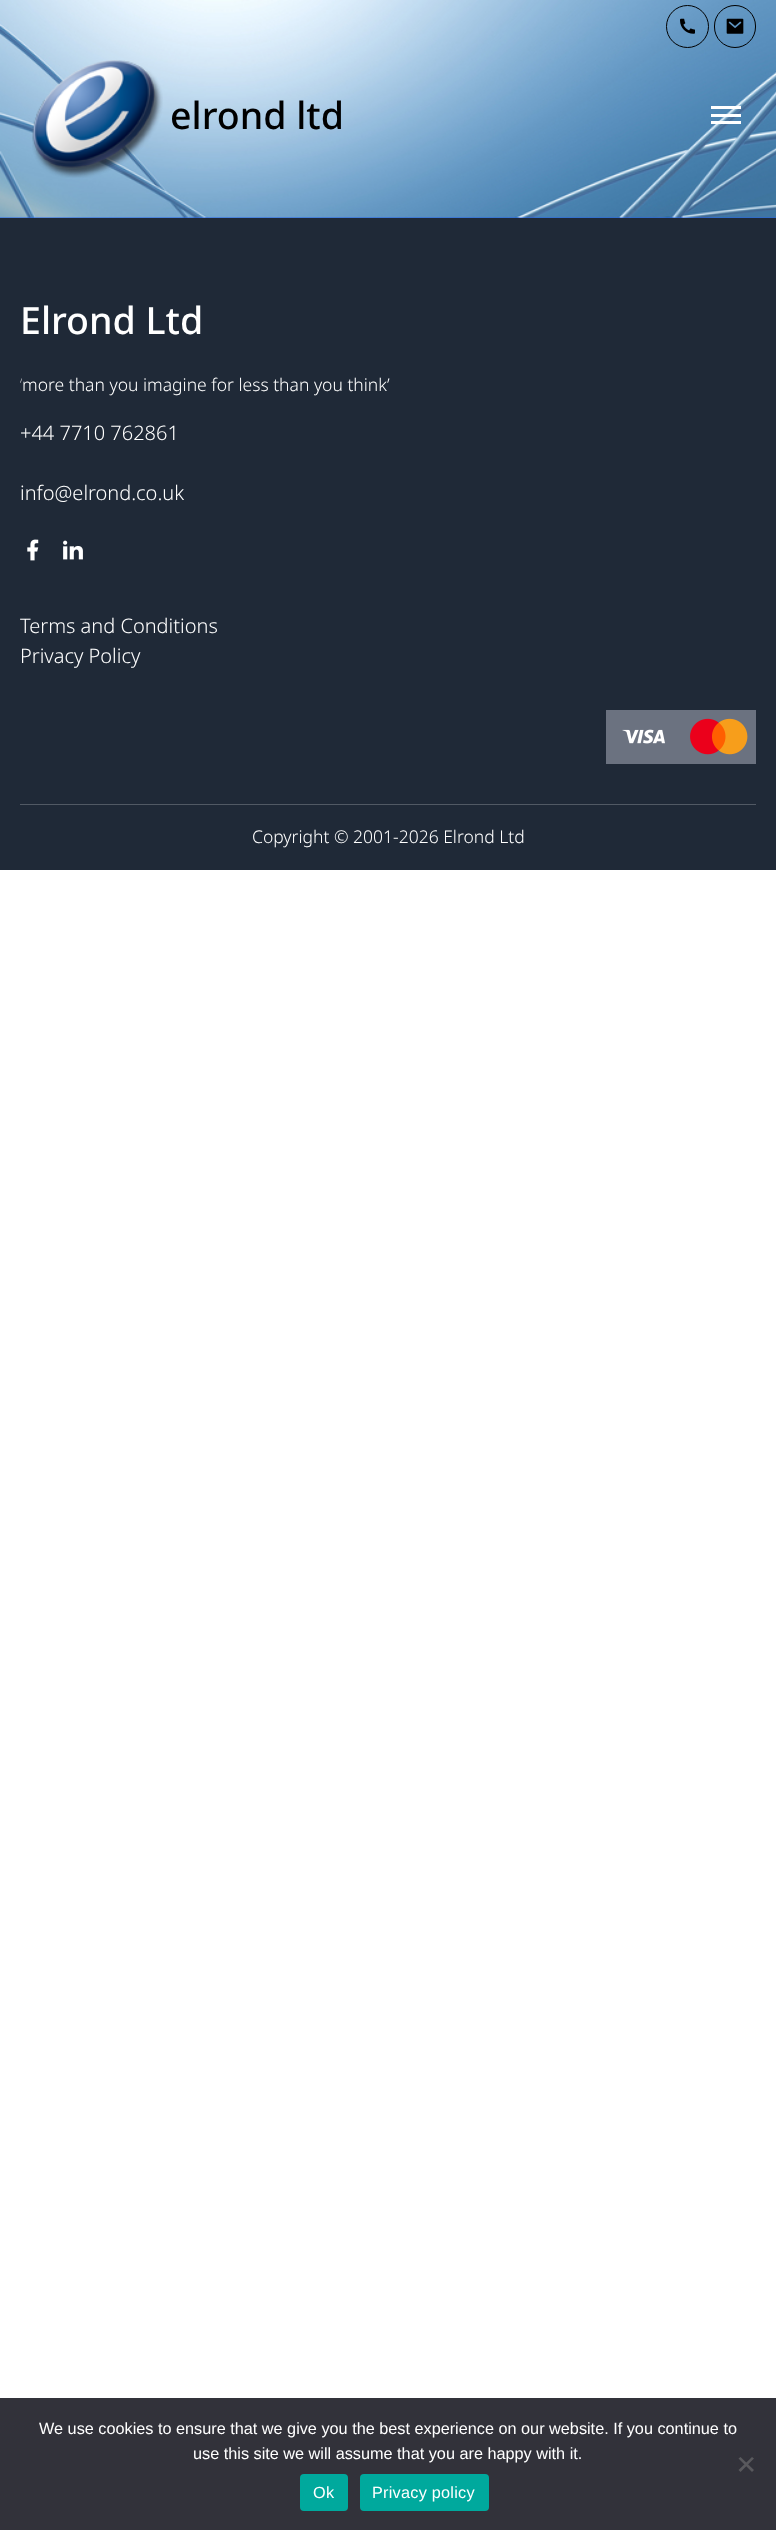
(async () => {
  const canvas = document.querySelector("canvas");
  canvas.width = 776;
  canvas.height = 2530;
  const ctx = canvas.getContext("2d");
  ctx.miterLimit = 4;
  ctx.fontKerning = "normal";
  async function loadImage(src) {
    const img = new Image();
    img.src = src;
    await img.decode();
    return img;
  }
  let path;

  ctx.fillStyle = "#ffffff";
  ctx.fillRect(0, 0, 776, 2530);
  ctx.fillStyle = "#2563eb";
  ctx.fillRect(0, 217, 776, 1);
  ctx.drawImage(await loadImage("img/1.png"), 0, 0, 776, 218);
  ctx.beginPath();
  ctx.arc(687.5, 26.5, 21, 0, Math.PI * 2);
  ctx.strokeStyle = "#000000";
  ctx.stroke();
  ctx.drawImage(await loadImage("img/2.png"), 680, 18, 15, 16);
  ctx.beginPath();
  ctx.roundRect(714.5, 5.5, 41, 42, 20.5);
  ctx.stroke();
  ctx.drawImage(await loadImage("img/3.png"), 726, 18, 18, 16);
  ctx.drawImage(await loadImage("img/4.png"), 32, 60, 131, 118);
  for (const [x, y, w, h, color] of [
    [711, 106, 30, 3, "#ffffff"],
    [711, 114, 30, 3, "#ffffff"],
    [711, 121, 30, 3, "#ffffff"],
    [0, 218, 776, 652, "#1f2937"],
  ]) {
    ctx.fillStyle = color;
    ctx.fillRect(x, y, w, h);
  }
  ctx.drawImage(await loadImage("img/5.png"), 27, 539, 12, 22);
  ctx.drawImage(await loadImage("img/6.png"), 63, 540, 20, 20);
  ctx.fillStyle = "#6b7280";
  ctx.fillRect(606, 710, 150, 54);
  ctx.drawImage(await loadImage("img/7.png"), 622, 729, 43, 15);
  ctx.drawImage(await loadImage("img/8.png"), 690, 718, 58, 37);
  ctx.fillStyle = "#515964";
  ctx.fillRect(20, 804, 736, 1);
  ctx.fillStyle = "#32323a";
  ctx.fillRect(0, 2398, 776, 132);
  ctx.fillStyle = "#59595d";
  path = new Path2D("M752 2457L754 2458.5L740.5 2472L738.5 2470Z");
  ctx.fill(path);
  path = new Path2D("M738.5 2458.5L740.5 2457L754 2470L752 2472Z");
  ctx.fill(path);
  ctx.fillStyle = "#00a99d";
  ctx.beginPath();
  ctx.roundRect(300, 2474, 48, 37, 4);
  ctx.fill();
  ctx.beginPath();
  ctx.roundRect(360, 2474, 129, 37, 4);
  ctx.fill();
  ctx.font = "500 37.5px Noto Sans";
  ctx.fillStyle = "#000000";
  ctx.fillText("elrond ltd", 170, 129);
  ctx.fillStyle = "#ffffff";
  ctx.fillText("Elrond Ltd", 20, 334);
  ctx.font = "100 17.5px Noto Sans";
  ctx.fillText("‘", 20, 391);
  ctx.font = "300 17.5px Noto Sans";
  ctx.fillText("more than you imagine for less than you think’", 22, 391);
  ctx.font = "300 20px Noto Sans";
  for (const [text, x, y] of [
    ["+44 7710 762861", 20, 440],
    ["info@elrond.co.uk", 20, 500],
    ["Terms and Conditions", 20, 633],
    ["Privacy Policy", 20, 663],
  ]) {
    ctx.fillText(text, x, y);
  }
  ctx.font = "300 17.5px Noto Sans";
  ctx.fillText("Copyright © 2001-2026 Elrond Ltd", 252, 843);
  ctx.font = "16.25px Liberation Sans";
  ctx.fillText("We use cookies to ensure that we give you the best experience on our website. If you continue to", 39, 2434);
  ctx.fillText("use this site we will assume that you are happy with it.", 193, 2459);
  ctx.letterSpacing = "0.25px";
  ctx.fillText("Ok", 313, 2498);
  ctx.fillText("Privacy policy", 372, 2498);
})();
